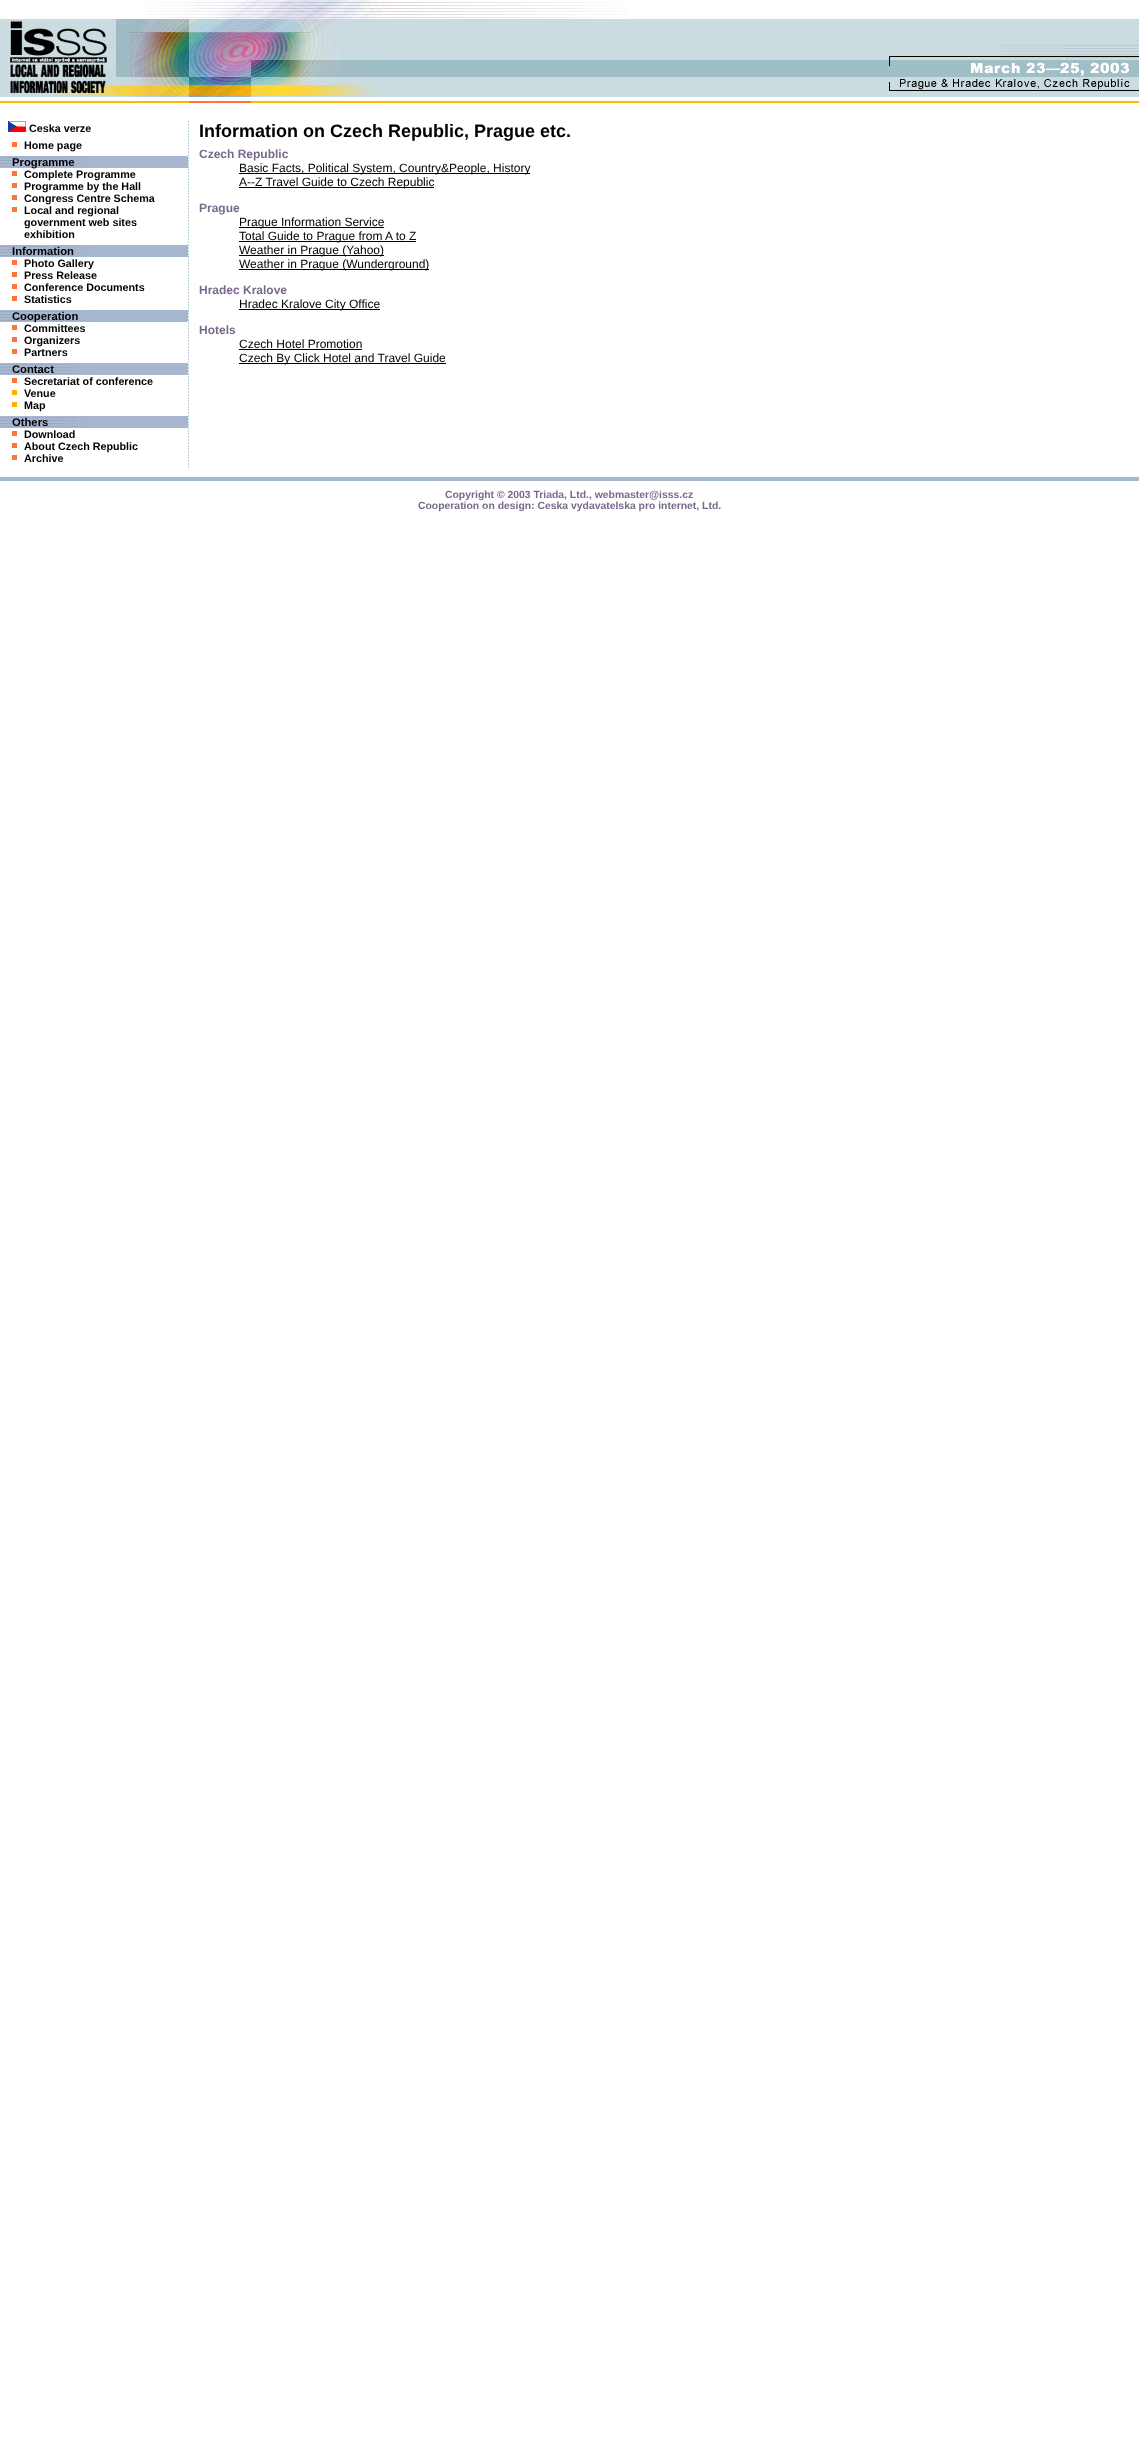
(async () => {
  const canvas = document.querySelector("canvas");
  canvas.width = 1139;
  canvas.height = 2455;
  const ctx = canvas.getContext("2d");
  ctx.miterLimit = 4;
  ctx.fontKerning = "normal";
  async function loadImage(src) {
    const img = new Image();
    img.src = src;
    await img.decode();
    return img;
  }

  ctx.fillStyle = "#ffffff";
  ctx.fillRect(0, 0, 1139, 2455);
  ctx.drawImage(await loadImage("img/1.png"), 146, 0, 234, 19);
  ctx.drawImage(await loadImage("img/2.png"), 380, 0, 248, 19);
  ctx.fillStyle = "#cadce0";
  ctx.fillRect(0, 19, 1139, 78);
  ctx.drawImage(await loadImage("img/3.png"), 10, 19, 120, 77);
  ctx.drawImage(await loadImage("img/4.png"), 130, 19, 250, 78);
  ctx.fillStyle = "#a0bec5";
  ctx.fillRect(380, 60, 509, 17);
  ctx.drawImage(await loadImage("img/5.png"), 889, 45, 250, 46);
  for (const [x, y, w, h, color] of [
    [0, 101, 189, 2, "#fdb900"],
    [189, 101, 62, 2, "#ff7539"],
    [251, 101, 888, 2, "#fdb900"],
  ]) {
    ctx.fillStyle = color;
    ctx.fillRect(x, y, w, h);
  }
  ctx.drawImage(await loadImage("img/6.png"), 8, 121, 18, 11);
  ctx.fillStyle = "#ff7539";
  ctx.fillRect(12, 142, 5, 5);
  ctx.drawImage(await loadImage("img/7.png"), 0, 156, 188, 12);
  for (const [x, y, w, h, color] of [
    [12, 171, 5, 5, "#ff7539"],
    [12, 183, 5, 5, "#ff7539"],
    [12, 195, 5, 5, "#ff7539"],
    [12, 207, 5, 5, "#ff7539"],
  ]) {
    ctx.fillStyle = color;
    ctx.fillRect(x, y, w, h);
  }
  ctx.drawImage(await loadImage("img/7.png"), 0, 245, 188, 12);
  for (const [x, y, w, h, color] of [
    [12, 260, 5, 5, "#ff7539"],
    [12, 272, 5, 5, "#ff7539"],
    [12, 284, 5, 5, "#ff7539"],
    [12, 296, 5, 5, "#ff7539"],
  ]) {
    ctx.fillStyle = color;
    ctx.fillRect(x, y, w, h);
  }
  ctx.drawImage(await loadImage("img/7.png"), 0, 310, 188, 12);
  for (const [x, y, w, h, color] of [
    [12, 325, 5, 5, "#ff7539"],
    [12, 337, 5, 5, "#ff7539"],
    [12, 349, 5, 5, "#ff7539"],
  ]) {
    ctx.fillStyle = color;
    ctx.fillRect(x, y, w, h);
  }
  ctx.drawImage(await loadImage("img/7.png"), 0, 363, 188, 12);
  for (const [x, y, w, h, color] of [
    [12, 378, 5, 5, "#ff7539"],
    [12, 390, 5, 5, "#fdb000"],
    [12, 402, 5, 5, "#fdb000"],
  ]) {
    ctx.fillStyle = color;
    ctx.fillRect(x, y, w, h);
  }
  ctx.drawImage(await loadImage("img/7.png"), 0, 416, 188, 12);
  for (const [x, y, w, h, color] of [
    [12, 431, 5, 5, "#ff7539"],
    [12, 443, 5, 5, "#ff7539"],
    [12, 455, 5, 5, "#ff7539"],
  ]) {
    ctx.fillStyle = color;
    ctx.fillRect(x, y, w, h);
  }
  ctx.drawImage(await loadImage("img/8.png"), 188, 121, 1, 347);
  for (const [x, y, w, h, color] of [
    [239, 173, 291, 1, "#000000"],
    [239, 187, 195, 1, "#000000"],
    [239, 227, 145, 1, "#000000"],
    [239, 241, 177, 1, "#000000"],
    [239, 255, 145, 1, "#000000"],
    [239, 269, 190, 1, "#000000"],
    [239, 309, 141, 1, "#000000"],
    [239, 349, 123, 1, "#000000"],
    [239, 363, 207, 1, "#000000"],
    [0, 477, 1139, 4, "#a8b7d0"],
  ]) {
    ctx.fillStyle = color;
    ctx.fillRect(x, y, w, h);
  }
  ctx.font = "bold 10.75px Liberation Sans";
  ctx.fillStyle = "#000000";
  ctx.fillText("Ceska verze", 29, 132);
  ctx.fillText("Home page", 24, 149);
  ctx.font = "bold 11.25px Liberation Sans";
  ctx.fillText("Programme", 12, 166);
  ctx.font = "bold 10.75px Liberation Sans";
  for (const [text, x, y] of [
    ["Complete Programme", 24, 178],
    ["Programme by the Hall", 24, 190],
    ["Congress Centre Schema", 24, 202],
    ["Local and regional", 24, 214],
    ["government web sites", 24, 226],
    ["exhibition", 24, 238],
  ]) {
    ctx.fillText(text, x, y);
  }
  ctx.font = "bold 11.25px Liberation Sans";
  ctx.fillText("Information", 12, 255);
  ctx.font = "bold 10.75px Liberation Sans";
  for (const [text, x, y] of [
    ["Photo Gallery", 24, 267],
    ["Press Release", 24, 279],
    ["Conference Documents", 24, 291],
    ["Statistics", 24, 303],
  ]) {
    ctx.fillText(text, x, y);
  }
  ctx.font = "bold 11.25px Liberation Sans";
  ctx.fillText("Cooperation", 12, 320);
  ctx.font = "bold 10.75px Liberation Sans";
  for (const [text, x, y] of [
    ["Committees", 24, 332],
    ["Organizers", 24, 344],
    ["Partners", 24, 356],
  ]) {
    ctx.fillText(text, x, y);
  }
  ctx.font = "bold 11.25px Liberation Sans";
  ctx.fillText("Contact", 12, 373);
  ctx.font = "bold 10.75px Liberation Sans";
  for (const [text, x, y] of [
    ["Secretariat of conference", 24, 385],
    ["Venue", 24, 397],
    ["Map", 24, 409],
  ]) {
    ctx.fillText(text, x, y);
  }
  ctx.font = "bold 11.25px Liberation Sans";
  ctx.fillText("Others", 12, 426);
  ctx.font = "bold 10.75px Liberation Sans";
  for (const [text, x, y] of [
    ["Download", 24, 438],
    ["About Czech Republic", 24, 450],
    ["Archive", 24, 462],
  ]) {
    ctx.fillText(text, x, y);
  }
  ctx.font = "bold 18px Liberation Sans";
  ctx.fillText("Information on Czech Republic, Prague etc.", 199, 137);
  ctx.font = "bold 12px Liberation Sans";
  ctx.fillStyle = "#79698c";
  ctx.fillText("Czech Republic", 199, 158);
  ctx.font = "12px Liberation Sans";
  ctx.fillStyle = "#000000";
  ctx.fillText("Basic Facts, Political System, Country&People, History", 239, 172);
  ctx.fillText("A--Z Travel Guide to Czech Republic", 239, 186);
  ctx.font = "bold 12px Liberation Sans";
  ctx.fillStyle = "#79698c";
  ctx.fillText("Prague", 199, 212);
  ctx.font = "12px Liberation Sans";
  ctx.fillStyle = "#000000";
  for (const [text, x, y] of [
    ["Prague Information Service", 239, 226],
    ["Total Guide to Prague from A to Z", 239, 240],
    ["Weather in Prague (Yahoo)", 239, 254],
    ["Weather in Prague (Wunderground)", 239, 268],
  ]) {
    ctx.fillText(text, x, y);
  }
  ctx.font = "bold 12px Liberation Sans";
  ctx.fillStyle = "#79698c";
  ctx.fillText("Hradec Kralove", 199, 294);
  ctx.font = "12px Liberation Sans";
  ctx.fillStyle = "#000000";
  ctx.fillText("Hradec Kralove City Office", 239, 308);
  ctx.font = "bold 12px Liberation Sans";
  ctx.fillStyle = "#79698c";
  ctx.fillText("Hotels", 199, 334);
  ctx.font = "12px Liberation Sans";
  ctx.fillStyle = "#000000";
  ctx.fillText("Czech Hotel Promotion", 239, 348);
  ctx.fillText("Czech By Click Hotel and Travel Guide", 239, 362);
  ctx.font = "bold 10.4px Liberation Sans";
  ctx.fillStyle = "#79698c";
  ctx.fillText("Copyright © 2003 Triada, Ltd., webmaster@isss.cz", 445, 498);
  ctx.fillText("Cooperation on design: Ceska vydavatelska pro internet, Ltd.", 418, 509);
})();
